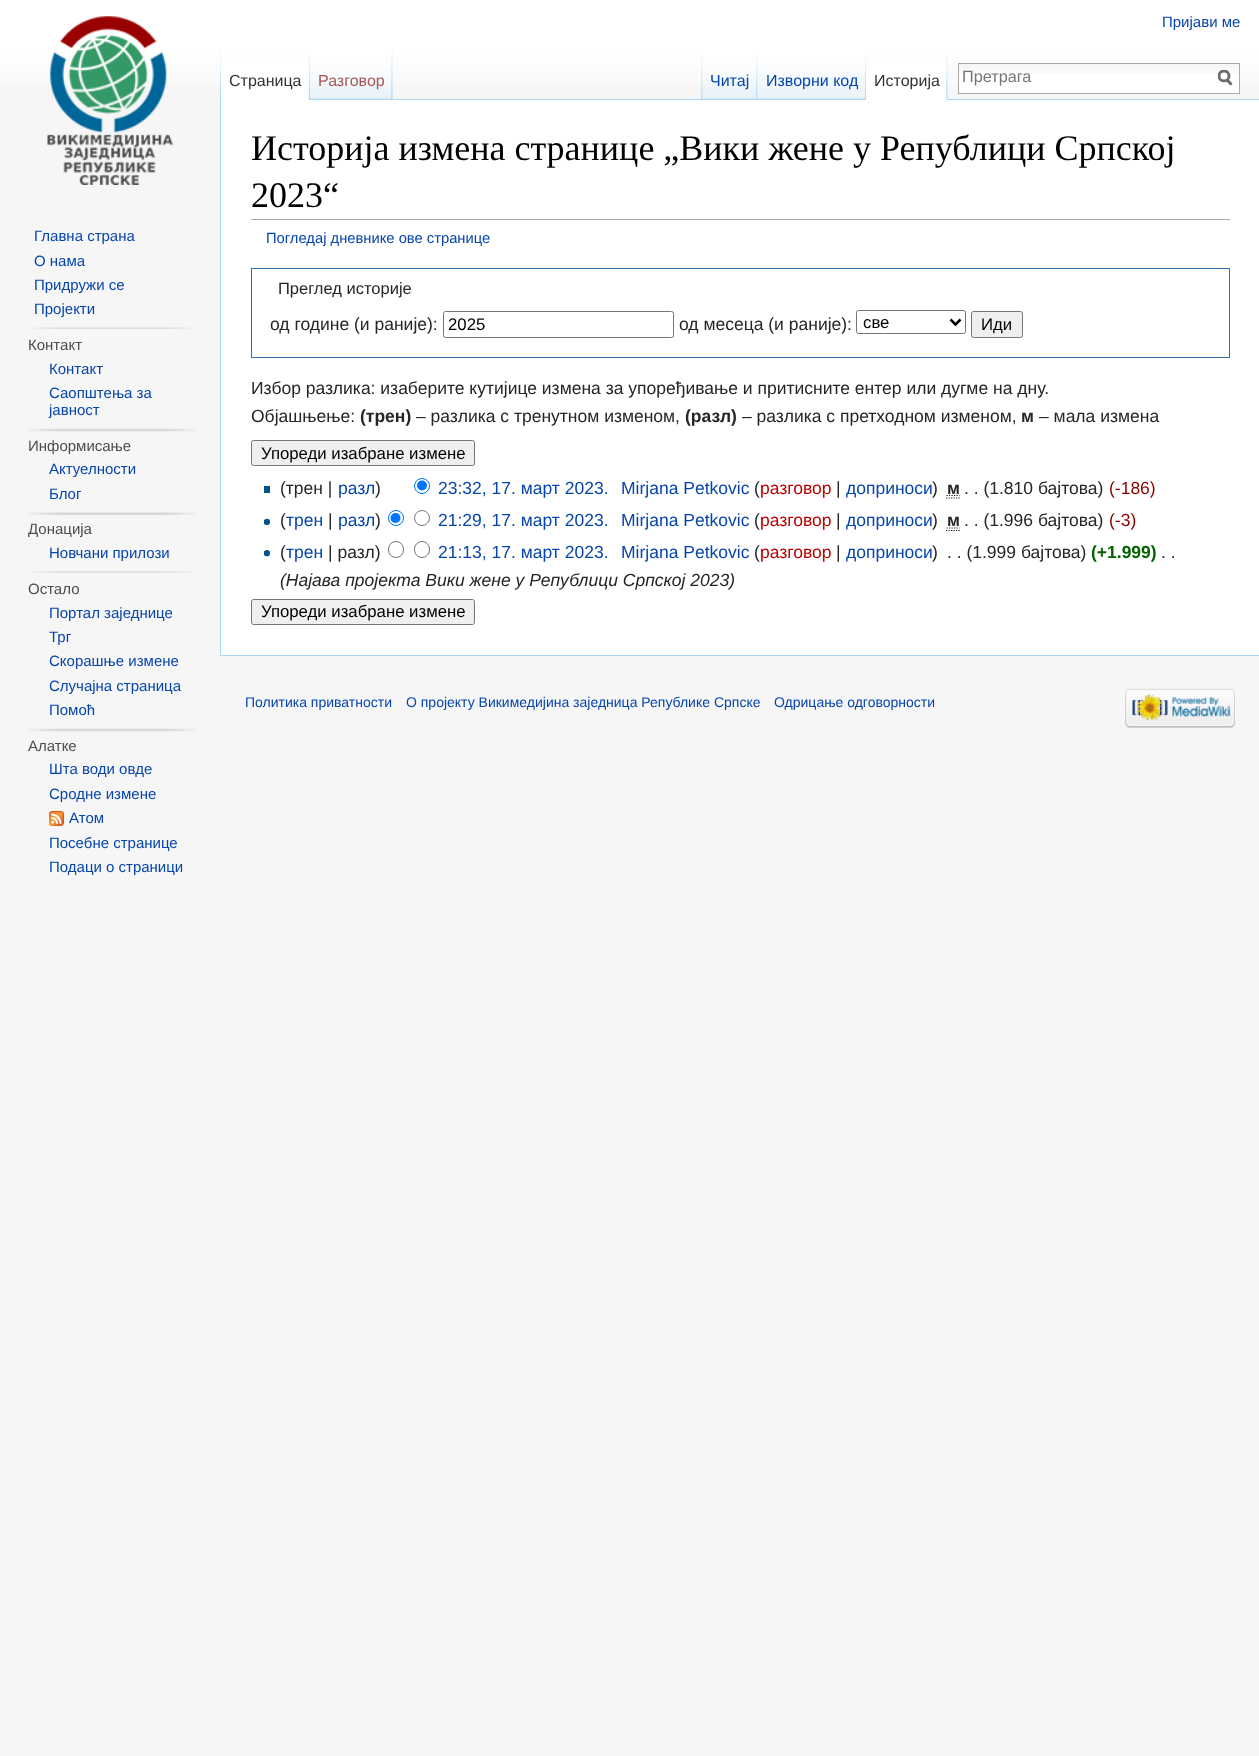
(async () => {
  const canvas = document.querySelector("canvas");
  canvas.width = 1259;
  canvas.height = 1756;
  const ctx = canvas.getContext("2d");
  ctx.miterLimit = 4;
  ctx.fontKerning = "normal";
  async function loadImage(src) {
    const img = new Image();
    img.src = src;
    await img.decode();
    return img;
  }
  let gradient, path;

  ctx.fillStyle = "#f6f6f6";
  ctx.fillRect(0, 0, 1259, 1756);
  gradient = ctx.createLinearGradient(630, 0, 630, 100);
  gradient.addColorStop(0.5, "#ffffff");
  gradient.addColorStop(1, "#f6f6f6");
  ctx.fillStyle = gradient;
  ctx.fillRect(0, 0, 1259, 86);
  ctx.drawImage(await loadImage("img/1.png"), 220, 50, 1, 49);
  ctx.fillStyle = "#ffffff";
  ctx.fillRect(221, 64, 88, 36);
  ctx.drawImage(await loadImage("img/2.png"), 308, 50, 2, 50);
  ctx.fillStyle = "#f3f3f3";
  ctx.fillRect(392, 50, 1, 50);
  ctx.drawImage(await loadImage("img/3.png"), 310, 50, 83, 50);
  ctx.drawImage(await loadImage("img/4.png"), 391, 52, 2, 48);
  ctx.drawImage(await loadImage("img/5.png"), 701, 52, 2, 47);
  ctx.fillStyle = "#a7d7f9";
  ctx.fillRect(393, 99, 866, 1);
  ctx.drawImage(await loadImage("img/6.png"), 702, 50, 56, 50);
  ctx.drawImage(await loadImage("img/4.png"), 756, 52, 2, 48);
  ctx.drawImage(await loadImage("img/7.png"), 757, 50, 109, 50);
  ctx.drawImage(await loadImage("img/8.png"), 865, 50, 1, 49);
  ctx.fillStyle = "#ffffff";
  ctx.fillRect(866, 64, 82, 36);
  ctx.drawImage(await loadImage("img/9.png"), 946, 52, 2, 48);
  ctx.fillRect(959, 74, 280, 19);
  ctx.drawImage(await loadImage("img/10.png"), 959, 64, 280, 10);
  ctx.strokeStyle = "#aaaaaa";
  ctx.strokeRect(958.5, 63.5, 281, 30);
  path = new Path2D("M1231.5 84.5L1226.5 79.5");
  ctx.strokeStyle = "#6c6c6c";
  ctx.lineWidth = 2.5;
  ctx.stroke(path);
  ctx.save();
  ctx.beginPath();
  ctx.rect(1218, 70, 15, 16);
  ctx.clip();
  ctx.beginPath();
  ctx.arc(1224, 76, 5, 0, Math.PI * 2);
  ctx.stroke();
  ctx.restore();
  path = new Path2D("M1231.5 84.5L1226.5 79.5");
  ctx.stroke(path);
  ctx.save();
  ctx.beginPath();
  ctx.rect(1218, 70, 15, 16);
  ctx.clip();
  ctx.beginPath();
  ctx.arc(1224, 76, 5, 0, Math.PI * 2);
  ctx.stroke();
  ctx.restore();
  ctx.drawImage(await loadImage("img/11.png"), 47, 16, 126, 169);
  ctx.drawImage(await loadImage("img/12.png"), 27, 327, 170, 2);
  ctx.drawImage(await loadImage("img/13.png"), 27, 428, 170, 4);
  ctx.drawImage(await loadImage("img/14.png"), 27, 512, 170, 3);
  ctx.drawImage(await loadImage("img/15.png"), 27, 571, 170, 2);
  ctx.drawImage(await loadImage("img/13.png"), 27, 728, 170, 4);
  ctx.drawImage(await loadImage("img/16.png"), 49, 811, 15, 15);
  for (const [x, y, w, h, color] of [
    [221, 100, 1038, 555, "#ffffff"],
    [220, 655, 1039, 1, "#a7d7f9"],
    [220, 99, 1, 557, "#a7d7f9"],
    [251, 219, 979, 1, "#aaaaaa"],
  ]) {
    ctx.fillStyle = color;
    ctx.fillRect(x, y, w, h);
  }
  ctx.strokeStyle = "#2f6fab";
  ctx.lineWidth = 1;
  ctx.strokeRect(251.5, 268.5, 978, 89);
  ctx.beginPath();
  ctx.roundRect(443.5, 311.5, 230, 26, 2);
  ctx.strokeStyle = "#767676";
  ctx.stroke();
  ctx.beginPath();
  ctx.roundRect(856.5, 310.5, 109, 23, 2);
  ctx.stroke();
  path = new Path2D("M950.5 319.5L955.5 324.5L960.5 319.5");
  ctx.strokeStyle = "#000000";
  ctx.lineWidth = 2.5;
  ctx.stroke(path);
  ctx.fillStyle = "#efefef";
  ctx.beginPath();
  ctx.roundRect(971.5, 311.5, 51, 26, 2);
  ctx.fill();
  ctx.strokeStyle = "#767676";
  ctx.lineWidth = 1;
  ctx.stroke();
  ctx.beginPath();
  ctx.roundRect(251.5, 440.5, 223, 25, 2);
  ctx.fill();
  ctx.stroke();
  ctx.fillStyle = "#00528c";
  ctx.fillRect(264, 486, 6, 7);
  ctx.beginPath();
  ctx.arc(422, 486, 7.5, 0, Math.PI * 2);
  ctx.strokeStyle = "#0075ff";
  ctx.stroke();
  ctx.fillStyle = "#0075ff";
  ctx.beginPath();
  ctx.arc(422, 485.5, 5, 0, Math.PI * 2);
  ctx.fill();
  path = new Path2D("M946 498H960M946.5 495.5H959.5");
  ctx.strokeStyle = "#252525";
  ctx.lineWidth = 1.2;
  ctx.setLineDash([1.25, 1.25]);
  ctx.stroke(path);
  ctx.drawImage(await loadImage("img/17.png"), 264, 518, 6, 7);
  ctx.beginPath();
  ctx.arc(396, 518, 7.5, 0, Math.PI * 2);
  ctx.strokeStyle = "#0075ff";
  ctx.lineWidth = 1;
  ctx.setLineDash([]);
  ctx.stroke();
  ctx.beginPath();
  ctx.arc(395.5, 518, 5, 0, Math.PI * 2);
  ctx.fill();
  ctx.beginPath();
  ctx.arc(422, 518, 7.5, 0, Math.PI * 2);
  ctx.strokeStyle = "#767676";
  ctx.stroke();
  path = new Path2D("M946 530.5H960M946.5 528H959.5");
  ctx.strokeStyle = "#252525";
  ctx.lineWidth = 1.2;
  ctx.setLineDash([1.25, 1.25]);
  ctx.stroke(path);
  ctx.drawImage(await loadImage("img/18.png"), 264, 550, 6, 7);
  ctx.beginPath();
  ctx.roundRect(388.5, 541.5, 15, 16, 7.5);
  ctx.strokeStyle = "#767676";
  ctx.lineWidth = 1;
  ctx.setLineDash([]);
  ctx.stroke();
  ctx.beginPath();
  ctx.roundRect(414.5, 541.5, 15, 16, 7.5);
  ctx.stroke();
  ctx.fillStyle = "#efefef";
  ctx.beginPath();
  ctx.roundRect(251.5, 599.5, 223, 25, 2);
  ctx.fill();
  ctx.stroke();
  ctx.drawImage(await loadImage("img/19.png"), 1125, 688, 110, 40);
  ctx.font = "15px Liberation Sans";
  ctx.fillStyle = "#0645ad";
  ctx.fillText("Пријави ме", 1162, 27);
  ctx.font = "16px Liberation Sans";
  ctx.fillStyle = "#333333";
  ctx.fillText("Страница", 229, 86);
  ctx.fillStyle = "#a55858";
  ctx.fillText("Разговор", 318, 86);
  ctx.fillStyle = "#0645ad";
  ctx.fillText("Читај", 710, 86);
  ctx.fillText("Изворни код", 766, 86);
  ctx.fillStyle = "#333333";
  ctx.fillText("Историја", 874, 86);
  ctx.font = "16.25px Liberation Sans";
  ctx.fillStyle = "#757575";
  ctx.fillText("Претрага", 962, 82);
  ctx.font = "15px Liberation Sans";
  ctx.fillStyle = "#0645ad";
  for (const [text, x, y] of [
    ["Главна страна", 34, 241],
    ["О нама", 34, 266],
    ["Придружи се", 34, 290],
    ["Пројекти", 34, 314],
  ]) {
    ctx.fillText(text, x, y);
  }
  ctx.fillStyle = "#4d4d4d";
  ctx.fillText("Контакт", 28, 350);
  ctx.fillStyle = "#0645ad";
  for (const [text, x, y] of [
    ["Контакт", 49, 374],
    ["Саопштења за", 49, 398],
    ["јавност", 49, 415],
  ]) {
    ctx.fillText(text, x, y);
  }
  ctx.fillStyle = "#4d4d4d";
  ctx.fillText("Информисање", 28, 451);
  ctx.fillStyle = "#0645ad";
  ctx.fillText("Актуелности", 49, 474);
  ctx.fillText("Блог", 49, 499);
  ctx.fillStyle = "#4d4d4d";
  ctx.fillText("Донација", 28, 534);
  ctx.fillStyle = "#0645ad";
  ctx.fillText("Новчани прилози", 49, 558);
  ctx.fillStyle = "#4d4d4d";
  ctx.fillText("Остало", 28, 594);
  ctx.fillStyle = "#0645ad";
  for (const [text, x, y] of [
    ["Портал заједнице", 49, 618],
    ["Трг", 49, 642],
    ["Скорашње измене", 49, 666],
    ["Случајна страница", 49, 691],
    ["Помоћ", 49, 715],
  ]) {
    ctx.fillText(text, x, y);
  }
  ctx.fillStyle = "#4d4d4d";
  ctx.fillText("Алатке", 28, 751);
  ctx.fillStyle = "#0645ad";
  for (const [text, x, y] of [
    ["Шта води овде", 49, 774],
    ["Сродне измене", 49, 799],
    ["Атом", 69, 823],
    ["Посебне странице", 49, 848],
    ["Подаци о страници", 49, 872],
  ]) {
    ctx.fillText(text, x, y);
  }
  ctx.font = "36px Liberation Serif";
  ctx.fillStyle = "#000000";
  ctx.fillText("Историја измена странице „Вики жене у Републици Српској", 251, 160);
  ctx.fillText("2023“", 251, 207);
  ctx.font = "14.75px Liberation Sans";
  ctx.fillStyle = "#0645ad";
  ctx.fillText("Погледај дневнике ове странице", 266, 243);
  ctx.font = "16.5px Liberation Sans";
  ctx.fillStyle = "#252525";
  ctx.fillText("Преглед историје", 278, 294);
  ctx.font = "17.5px Liberation Sans";
  ctx.fillText("од године (и раније):", 270, 330);
  ctx.font = "16.75px Liberation Sans";
  ctx.fillStyle = "#000000";
  ctx.fillText("2025", 448, 330);
  ctx.font = "17.5px Liberation Sans";
  ctx.fillStyle = "#252525";
  ctx.fillText("од месеца (и раније):", 679, 330);
  ctx.font = "16.75px Liberation Sans";
  ctx.fillStyle = "#000000";
  ctx.fillText("све", 863, 328);
  ctx.fillText("Иди", 981, 330);
  ctx.font = "17.5px Liberation Sans";
  ctx.fillStyle = "#252525";
  ctx.fillText("Избор разлика: изаберите кутијице измена за упоређивање и притисните ентер или дугме на дну.", 251, 394);
  ctx.fillText("Објашњење:", 251, 422);
  ctx.font = "bold 17.5px Liberation Sans";
  ctx.fillText("(трен)", 360, 422);
  ctx.font = "17.5px Liberation Sans";
  ctx.fillText("– разлика с тренутном изменом,", 416, 422);
  ctx.font = "bold 17.5px Liberation Sans";
  ctx.fillText("(разл)", 685, 422);
  ctx.font = "17.5px Liberation Sans";
  ctx.fillText("– разлика с претходном изменом,", 742, 422);
  ctx.font = "bold 17.5px Liberation Sans";
  ctx.fillText("м", 1021, 422);
  ctx.font = "17.5px Liberation Sans";
  ctx.fillText("– мала измена", 1039, 422);
  ctx.font = "16.75px Liberation Sans";
  ctx.fillStyle = "#000000";
  ctx.fillText("Упореди изабране измене", 261, 459);
  ctx.font = "17.5px Liberation Sans";
  ctx.fillStyle = "#252525";
  ctx.fillText("(трен |", 280, 494);
  ctx.fillStyle = "#0645ad";
  ctx.fillText("разл", 338, 494);
  ctx.fillStyle = "#252525";
  ctx.fillText(")", 375, 494);
  ctx.fillStyle = "#0645ad";
  ctx.fillText("23:32, 17. март 2023.", 438, 494);
  ctx.fillText("Mirjana Petkovic", 621, 494);
  ctx.fillStyle = "#252525";
  ctx.fillText("(", 754, 494);
  ctx.fillStyle = "#ba0000";
  ctx.fillText("разговор", 760, 494);
  ctx.fillStyle = "#252525";
  ctx.fillText("|", 836, 494);
  ctx.fillStyle = "#0645ad";
  ctx.fillText("доприноси", 846, 494);
  ctx.fillStyle = "#252525";
  ctx.fillText(")", 932, 494);
  ctx.font = "bold 17.5px Liberation Sans";
  ctx.fillText("м", 947, 494);
  ctx.font = "17.5px Liberation Sans";
  ctx.fillText(". . (1.810 бајтова)", 964, 494);
  ctx.fillStyle = "#8b0000";
  ctx.fillText("(-186)", 1109, 494);
  ctx.fillStyle = "#252525";
  ctx.fillText("(", 280, 526);
  ctx.fillStyle = "#0645ad";
  ctx.fillText("трен", 286, 526);
  ctx.fillStyle = "#252525";
  ctx.fillText("|", 328, 526);
  ctx.fillStyle = "#0645ad";
  ctx.fillText("разл", 338, 526);
  ctx.fillStyle = "#252525";
  ctx.fillText(")", 375, 526);
  ctx.fillStyle = "#0645ad";
  ctx.fillText("21:29, 17. март 2023.", 438, 526);
  ctx.fillText("Mirjana Petkovic", 621, 526);
  ctx.fillStyle = "#252525";
  ctx.fillText("(", 754, 526);
  ctx.fillStyle = "#ba0000";
  ctx.fillText("разговор", 760, 526);
  ctx.fillStyle = "#252525";
  ctx.fillText("|", 836, 526);
  ctx.fillStyle = "#0645ad";
  ctx.fillText("доприноси", 846, 526);
  ctx.fillStyle = "#252525";
  ctx.fillText(")", 932, 526);
  ctx.font = "bold 17.5px Liberation Sans";
  ctx.fillText("м", 947, 526);
  ctx.font = "17.5px Liberation Sans";
  ctx.fillText(". . (1.996 бајтова)", 964, 526);
  ctx.fillStyle = "#8b0000";
  ctx.fillText("(-3)", 1109, 526);
  ctx.fillStyle = "#252525";
  ctx.fillText("(", 280, 558);
  ctx.fillStyle = "#0645ad";
  ctx.fillText("трен", 286, 558);
  ctx.fillStyle = "#252525";
  ctx.fillText("| разл)", 328, 558);
  ctx.fillStyle = "#0645ad";
  ctx.fillText("21:13, 17. март 2023.", 438, 558);
  ctx.fillText("Mirjana Petkovic", 621, 558);
  ctx.fillStyle = "#252525";
  ctx.fillText("(", 754, 558);
  ctx.fillStyle = "#ba0000";
  ctx.fillText("разговор", 760, 558);
  ctx.fillStyle = "#252525";
  ctx.fillText("|", 836, 558);
  ctx.fillStyle = "#0645ad";
  ctx.fillText("доприноси", 846, 558);
  ctx.fillStyle = "#252525";
  ctx.fillText(")", 932, 558);
  ctx.fillText(". . (1.999 бајтова)", 947, 558);
  ctx.font = "bold 17.5px Liberation Sans";
  ctx.fillStyle = "#006400";
  ctx.fillText("(+1.999)", 1091, 558);
  ctx.font = "17.5px Liberation Sans";
  ctx.fillStyle = "#252525";
  ctx.fillText(". .", 1161, 558);
  ctx.font = "italic 17.5px Liberation Sans";
  ctx.fillText("(Најава пројекта Вики жене у Републици Српској 2023)", 280, 586);
  ctx.font = "16.75px Liberation Sans";
  ctx.fillStyle = "#000000";
  ctx.fillText("Упореди изабране измене", 261, 617);
  ctx.font = "14px Liberation Sans";
  ctx.fillStyle = "#0645ad";
  for (const [text, x, y] of [
    ["Политика приватности", 245, 707],
    ["О пројекту Викимедијина заједница Републике Српске", 406, 707],
    ["Одрицање одговорности", 774, 707],
  ]) {
    ctx.fillText(text, x, y);
  }
})();
